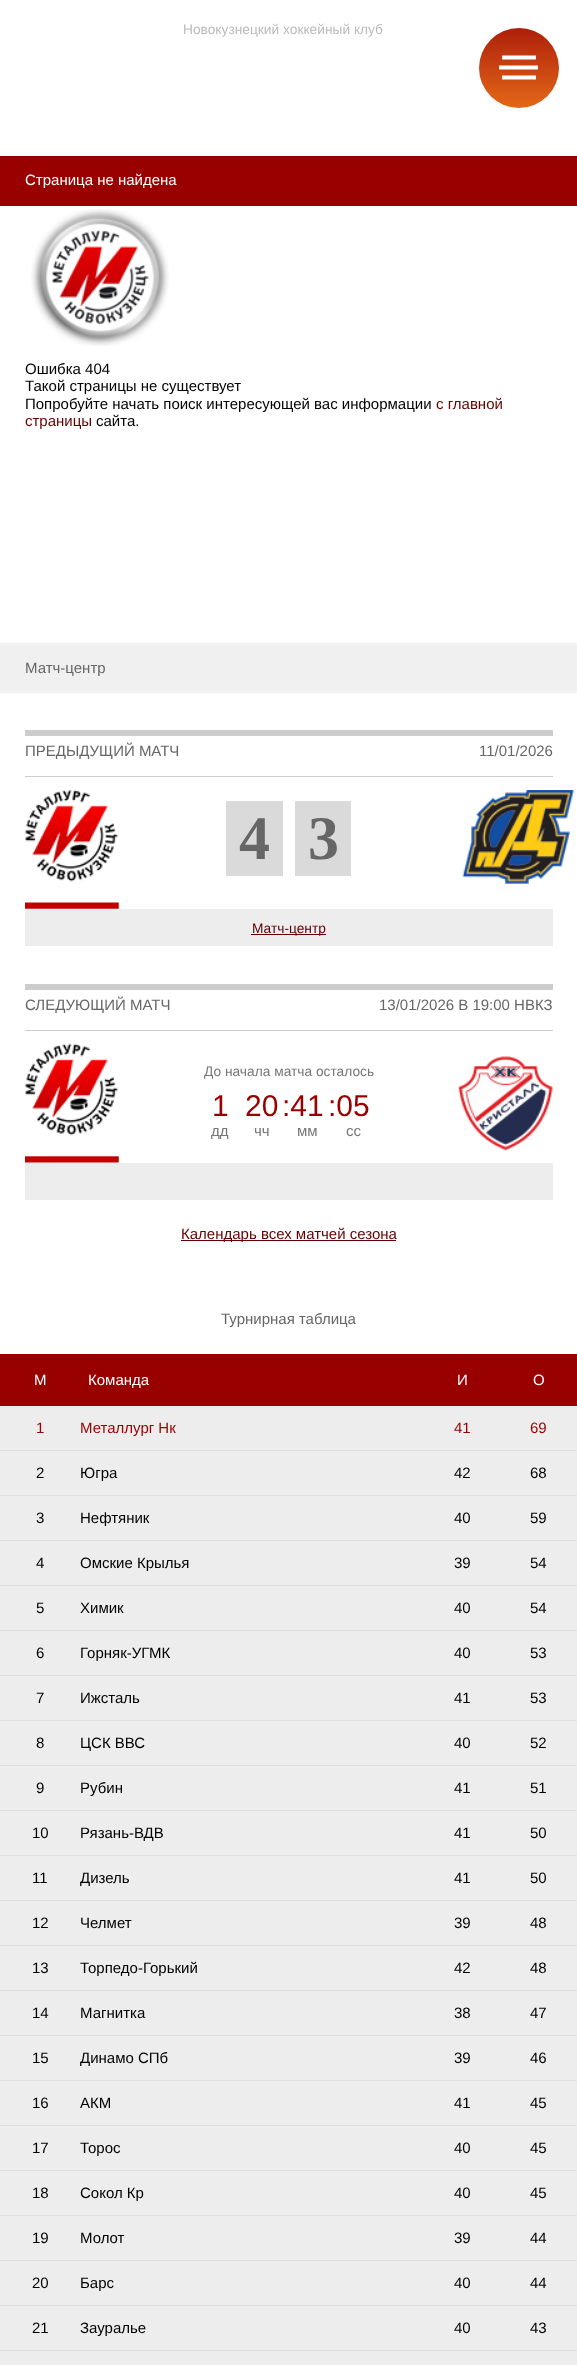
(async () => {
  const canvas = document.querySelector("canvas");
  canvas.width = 577;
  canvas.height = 2365;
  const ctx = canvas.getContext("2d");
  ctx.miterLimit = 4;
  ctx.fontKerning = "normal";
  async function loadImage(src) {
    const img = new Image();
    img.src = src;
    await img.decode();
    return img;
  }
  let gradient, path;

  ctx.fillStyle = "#ffffff";
  ctx.fillRect(0, 0, 577, 2365);
  gradient = ctx.createLinearGradient(519, 108, 519, 28);
  gradient.addColorStop(0, "#e36817");
  gradient.addColorStop(1, "#ae1f0b");
  ctx.fillStyle = gradient;
  ctx.beginPath();
  ctx.arc(519, 68, 40, 0, Math.PI * 2);
  ctx.fill();
  path = new Path2D("M501 67.5H536M504 57.5H534M504 77.5H534");
  ctx.strokeStyle = "#ffffff";
  ctx.lineWidth = 3.8;
  ctx.lineCap = "square";
  ctx.stroke(path);
  ctx.fillStyle = "#990000";
  ctx.fillRect(0, 156, 577, 50);
  ctx.drawImage(await loadImage("img/1.png"), 31, 209, 138, 137);
  for (const [x, y, w, h, color] of [
    [0, 643, 577, 50, "#f0f0f0"],
    [25, 730, 528, 6, "#cccccc"],
    [25, 776, 528, 1, "#cccccc"],
  ]) {
    ctx.fillStyle = color;
    ctx.fillRect(x, y, w, h);
  }
  ctx.drawImage(await loadImage("img/2.png"), 25, 790, 94, 119);
  ctx.fillStyle = "#dadada";
  ctx.fillRect(226, 801, 57, 75);
  ctx.fillRect(295, 801, 56, 75);
  ctx.drawImage(await loadImage("img/3.png"), 462, 790, 112, 94);
  for (const [x, y, w, h, color] of [
    [25, 909, 528, 37, "#ededed"],
    [251, 934, 75, 1, "#660000"],
    [25, 984, 528, 6, "#cccccc"],
    [25, 1030, 528, 1, "#cccccc"],
  ]) {
    ctx.fillStyle = color;
    ctx.fillRect(x, y, w, h);
  }
  ctx.drawImage(await loadImage("img/4.png"), 25, 1043, 94, 120);
  ctx.drawImage(await loadImage("img/5.png"), 458, 1056, 95, 95);
  for (const [x, y, w, h, color] of [
    [25, 1163, 528, 37, "#ededed"],
    [181, 1240, 215, 1, "#660000"],
    [0, 1354, 577, 52, "#990000"],
    [0, 1406, 577, 44, "#ededed"],
    [0, 1450, 577, 1, "#dfdfdf"],
    [0, 1451, 577, 44, "#ededed"],
    [0, 1495, 577, 1, "#dfdfdf"],
    [0, 1496, 577, 44, "#ededed"],
    [0, 1540, 577, 1, "#dfdfdf"],
    [0, 1541, 577, 44, "#ededed"],
    [0, 1585, 577, 1, "#dfdfdf"],
    [0, 1586, 577, 44, "#ededed"],
    [0, 1630, 577, 1, "#dfdfdf"],
    [0, 1631, 577, 44, "#ededed"],
    [0, 1675, 577, 1, "#dfdfdf"],
    [0, 1676, 577, 44, "#ededed"],
    [0, 1720, 577, 1, "#dfdfdf"],
    [0, 1721, 577, 44, "#ededed"],
    [0, 1765, 577, 1, "#dfdfdf"],
    [0, 1766, 577, 44, "#ededed"],
    [0, 1810, 577, 1, "#dfdfdf"],
    [0, 1811, 577, 44, "#ededed"],
    [0, 1855, 577, 1, "#dfdfdf"],
    [0, 1856, 577, 44, "#ededed"],
    [0, 1900, 577, 1, "#dfdfdf"],
    [0, 1901, 577, 44, "#ededed"],
    [0, 1945, 577, 1, "#dfdfdf"],
    [0, 1946, 577, 44, "#ededed"],
    [0, 1990, 577, 1, "#dfdfdf"],
    [0, 1991, 577, 44, "#ededed"],
    [0, 2035, 577, 1, "#dfdfdf"],
    [0, 2036, 577, 44, "#ededed"],
    [0, 2080, 577, 1, "#dfdfdf"],
    [0, 2081, 577, 44, "#ededed"],
    [0, 2125, 577, 1, "#dfdfdf"],
    [0, 2126, 577, 44, "#ededed"],
    [0, 2170, 577, 1, "#dfdfdf"],
    [0, 2171, 577, 44, "#ededed"],
    [0, 2215, 577, 1, "#dfdfdf"],
    [0, 2216, 577, 44, "#ededed"],
    [0, 2260, 577, 1, "#dfdfdf"],
    [0, 2261, 577, 44, "#ededed"],
    [0, 2305, 577, 1, "#dfdfdf"],
    [0, 2306, 577, 44, "#ededed"],
    [0, 2350, 577, 1, "#dfdfdf"],
    [0, 2351, 577, 14, "#ededed"],
  ]) {
    ctx.fillStyle = color;
    ctx.fillRect(x, y, w, h);
  }
  ctx.font = "13.75px Liberation Sans";
  ctx.fillStyle = "#bbbbbb";
  ctx.fillText("Новокузнецкий хоккейный клуб", 183, 34);
  ctx.font = "15px Liberation Sans";
  ctx.fillStyle = "#ffffff";
  ctx.fillText("Страница не найдена", 25, 185);
  ctx.fillStyle = "#000000";
  for (const [text, x, y] of [
    ["Ошибка 404", 25, 374],
    ["Такой страницы не существует", 25, 391],
    ["Попробуйте начать поиск интересующей вас информации", 25, 409],
  ]) {
    ctx.fillText(text, x, y);
  }
  ctx.fillStyle = "#660000";
  ctx.fillText("с главной", 436, 409);
  ctx.fillText("страницы", 25, 426);
  ctx.fillStyle = "#000000";
  ctx.fillText("сайта.", 96, 426);
  ctx.fillStyle = "#666666";
  for (const [text, x, y] of [
    ["Матч-центр", 25, 673],
    ["ПРЕДЫДУЩИЙ МАТЧ", 25, 756],
    ["11/01/2026", 479, 756],
  ]) {
    ctx.fillText(text, x, y);
  }
  ctx.font = "bold 62px Liberation Serif";
  ctx.fillText("4", 239, 859);
  ctx.fillText("3", 308, 859);
  ctx.font = "13.75px Liberation Sans";
  ctx.fillStyle = "#660000";
  ctx.fillText("Матч-центр", 252, 933);
  ctx.font = "15px Liberation Sans";
  ctx.fillStyle = "#666666";
  ctx.fillText("СЛЕДУЮЩИЙ МАТЧ", 25, 1010);
  ctx.fillText("13/01/2026 В 19:00 НВКЗ", 379, 1010);
  ctx.font = "13.75px Liberation Sans";
  ctx.fillStyle = "#777777";
  ctx.fillText("До начала матча осталось", 204, 1076);
  ctx.font = "30px Liberation Sans";
  ctx.fillStyle = "#990000";
  ctx.fillText("1", 212, 1116);
  ctx.font = "15px Liberation Sans";
  ctx.fillStyle = "#777777";
  ctx.fillText("дд", 211, 1136);
  ctx.font = "30px Liberation Sans";
  ctx.fillStyle = "#990000";
  ctx.fillText("20", 245, 1116);
  ctx.fillText(":41", 282, 1116);
  ctx.font = "15px Liberation Sans";
  ctx.fillStyle = "#777777";
  ctx.fillText("чч", 254, 1136);
  ctx.font = "30px Liberation Sans";
  ctx.fillStyle = "#990000";
  ctx.fillText(":05", 328, 1116);
  ctx.font = "15px Liberation Sans";
  ctx.fillStyle = "#777777";
  ctx.fillText("мм", 297, 1136);
  ctx.fillText("сс", 346, 1136);
  ctx.fillStyle = "#660000";
  ctx.fillText("Календарь всех матчей сезона", 181, 1239);
  ctx.fillStyle = "#666666";
  ctx.fillText("Турнирная таблица", 221, 1324);
  ctx.fillStyle = "#ffffff";
  for (const [text, x, y] of [
    ["М", 34, 1385],
    ["Команда", 88, 1385],
    ["И", 457, 1385],
    ["О", 533, 1385],
  ]) {
    ctx.fillText(text, x, y);
  }
  ctx.fillStyle = "#990000";
  for (const [text, x, y] of [
    ["1", 36, 1433],
    ["Металлург Нк", 80, 1433],
    ["41", 454, 1433],
    ["69", 530, 1433],
  ]) {
    ctx.fillText(text, x, y);
  }
  ctx.fillStyle = "#000000";
  for (const [text, x, y] of [
    ["2", 36, 1478],
    ["Югра", 80, 1478],
    ["42", 454, 1478],
    ["68", 530, 1478],
    ["3", 36, 1523],
    ["Нефтяник", 80, 1523],
    ["40", 454, 1523],
    ["59", 530, 1523],
    ["4", 36, 1568],
    ["Омские Крылья", 80, 1568],
    ["39", 454, 1568],
    ["54", 530, 1568],
    ["5", 36, 1613],
    ["Химик", 80, 1613],
    ["40", 454, 1613],
    ["54", 530, 1613],
    ["6", 36, 1658],
    ["Горняк-УГМК", 80, 1658],
    ["40", 454, 1658],
    ["53", 530, 1658],
    ["7", 36, 1703],
    ["Ижсталь", 80, 1703],
    ["41", 454, 1703],
    ["53", 530, 1703],
    ["8", 36, 1748],
    ["ЦСК ВВС", 80, 1748],
    ["40", 454, 1748],
    ["52", 530, 1748],
    ["9", 36, 1793],
    ["Рубин", 80, 1793],
    ["41", 454, 1793],
    ["51", 530, 1793],
    ["10", 32, 1838],
    ["Рязань-ВДВ", 80, 1838],
    ["41", 454, 1838],
    ["50", 530, 1838],
    ["11", 32, 1883],
    ["Дизель", 80, 1883],
    ["41", 454, 1883],
    ["50", 530, 1883],
    ["12", 32, 1928],
    ["Челмет", 80, 1928],
    ["39", 454, 1928],
    ["48", 530, 1928],
    ["13", 32, 1973],
    ["Торпедо-Горький", 80, 1973],
    ["42", 454, 1973],
    ["48", 530, 1973],
    ["14", 32, 2018],
    ["Магнитка", 80, 2018],
    ["38", 454, 2018],
    ["47", 530, 2018],
    ["15", 32, 2063],
    ["Динамо СПб", 80, 2063],
    ["39", 454, 2063],
    ["46", 530, 2063],
    ["16", 32, 2108],
    ["АКМ", 80, 2108],
    ["41", 454, 2108],
    ["45", 530, 2108],
    ["17", 32, 2153],
    ["Торос", 80, 2153],
    ["40", 454, 2153],
    ["45", 530, 2153],
    ["18", 32, 2198],
    ["Сокол Кр", 80, 2198],
    ["40", 454, 2198],
    ["45", 530, 2198],
    ["19", 32, 2243],
    ["Молот", 80, 2243],
    ["39", 454, 2243],
    ["44", 530, 2243],
    ["20", 32, 2288],
    ["Барс", 80, 2288],
    ["40", 454, 2288],
    ["44", 530, 2288],
    ["21", 32, 2333],
    ["Зауралье", 80, 2333],
    ["40", 454, 2333],
    ["43", 530, 2333],
  ]) {
    ctx.fillText(text, x, y);
  }
})();
